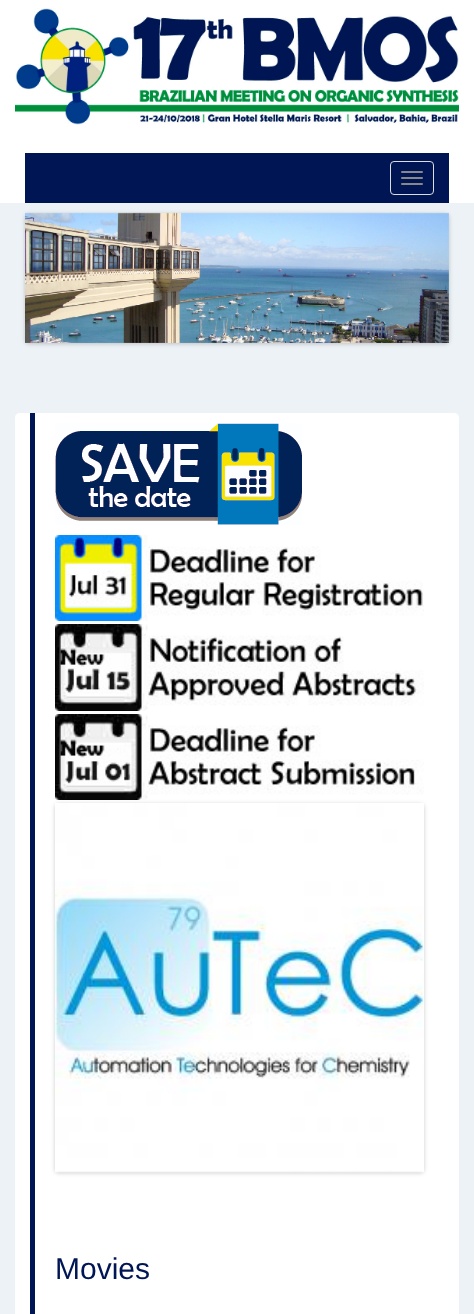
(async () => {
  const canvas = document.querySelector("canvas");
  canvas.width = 474;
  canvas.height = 1314;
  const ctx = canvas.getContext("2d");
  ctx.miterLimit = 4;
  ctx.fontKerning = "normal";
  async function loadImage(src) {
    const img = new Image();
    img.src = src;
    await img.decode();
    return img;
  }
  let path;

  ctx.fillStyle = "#ffffff";
  ctx.fillRect(0, 0, 474, 1314);
  ctx.drawImage(await loadImage("img/1.png"), 15, 8, 444, 117);
  ctx.fillStyle = "#001654";
  ctx.fillRect(25, 153, 424, 50);
  ctx.beginPath();
  ctx.roundRect(390.5, 161.5, 43, 33, 3.5);
  ctx.strokeStyle = "#dddddd";
  ctx.stroke();
  ctx.fillStyle = "#888888";
  ctx.beginPath();
  ctx.roundRect(401, 171, 22, 2, 1);
  ctx.fill();
  ctx.beginPath();
  ctx.roundRect(401, 177, 22, 2, 1);
  ctx.fill();
  ctx.beginPath();
  ctx.roundRect(401, 183, 22, 2, 1);
  ctx.fill();
  ctx.fillStyle = "#edf2f7";
  ctx.fillRect(0, 203, 474, 1111);
  ctx.fillStyle = "rgba(0, 0, 0, 0.2)";
  ctx.filter = "blur(2px)";
  ctx.beginPath();
  ctx.roundRect(25, 214, 424, 130, 4);
  ctx.fill();
  ctx.filter = "none";
  ctx.drawImage(await loadImage("img/2.png"), 25, 212, 424, 131);
  ctx.fillStyle = "#ffffff";
  path = new Path2D("M20 413H454C457 413 459 415 459 418V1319H15V418C15 415 17 413 20 413Z");
  ctx.fill(path);
  ctx.fillStyle = "#001654";
  ctx.fillRect(30, 413, 5, 901);
  ctx.drawImage(await loadImage("img/3.png"), 55, 423, 247, 102);
  ctx.drawImage(await loadImage("img/4.png"), 55, 535, 369, 86);
  ctx.drawImage(await loadImage("img/5.png"), 55, 624, 369, 87);
  ctx.drawImage(await loadImage("img/6.png"), 55, 714, 369, 86);
  ctx.fillStyle = "rgba(0, 0, 0, 0.2)";
  ctx.filter = "blur(2px)";
  ctx.beginPath();
  ctx.roundRect(55, 804, 369, 369, 4);
  ctx.fill();
  ctx.filter = "none";
  ctx.drawImage(await loadImage("img/7.png"), 55, 803, 369, 370);
  ctx.font = "30px Liberation Sans";
  ctx.fillStyle = "#001654";
  ctx.fillText("Movies", 55, 1279);
})();
